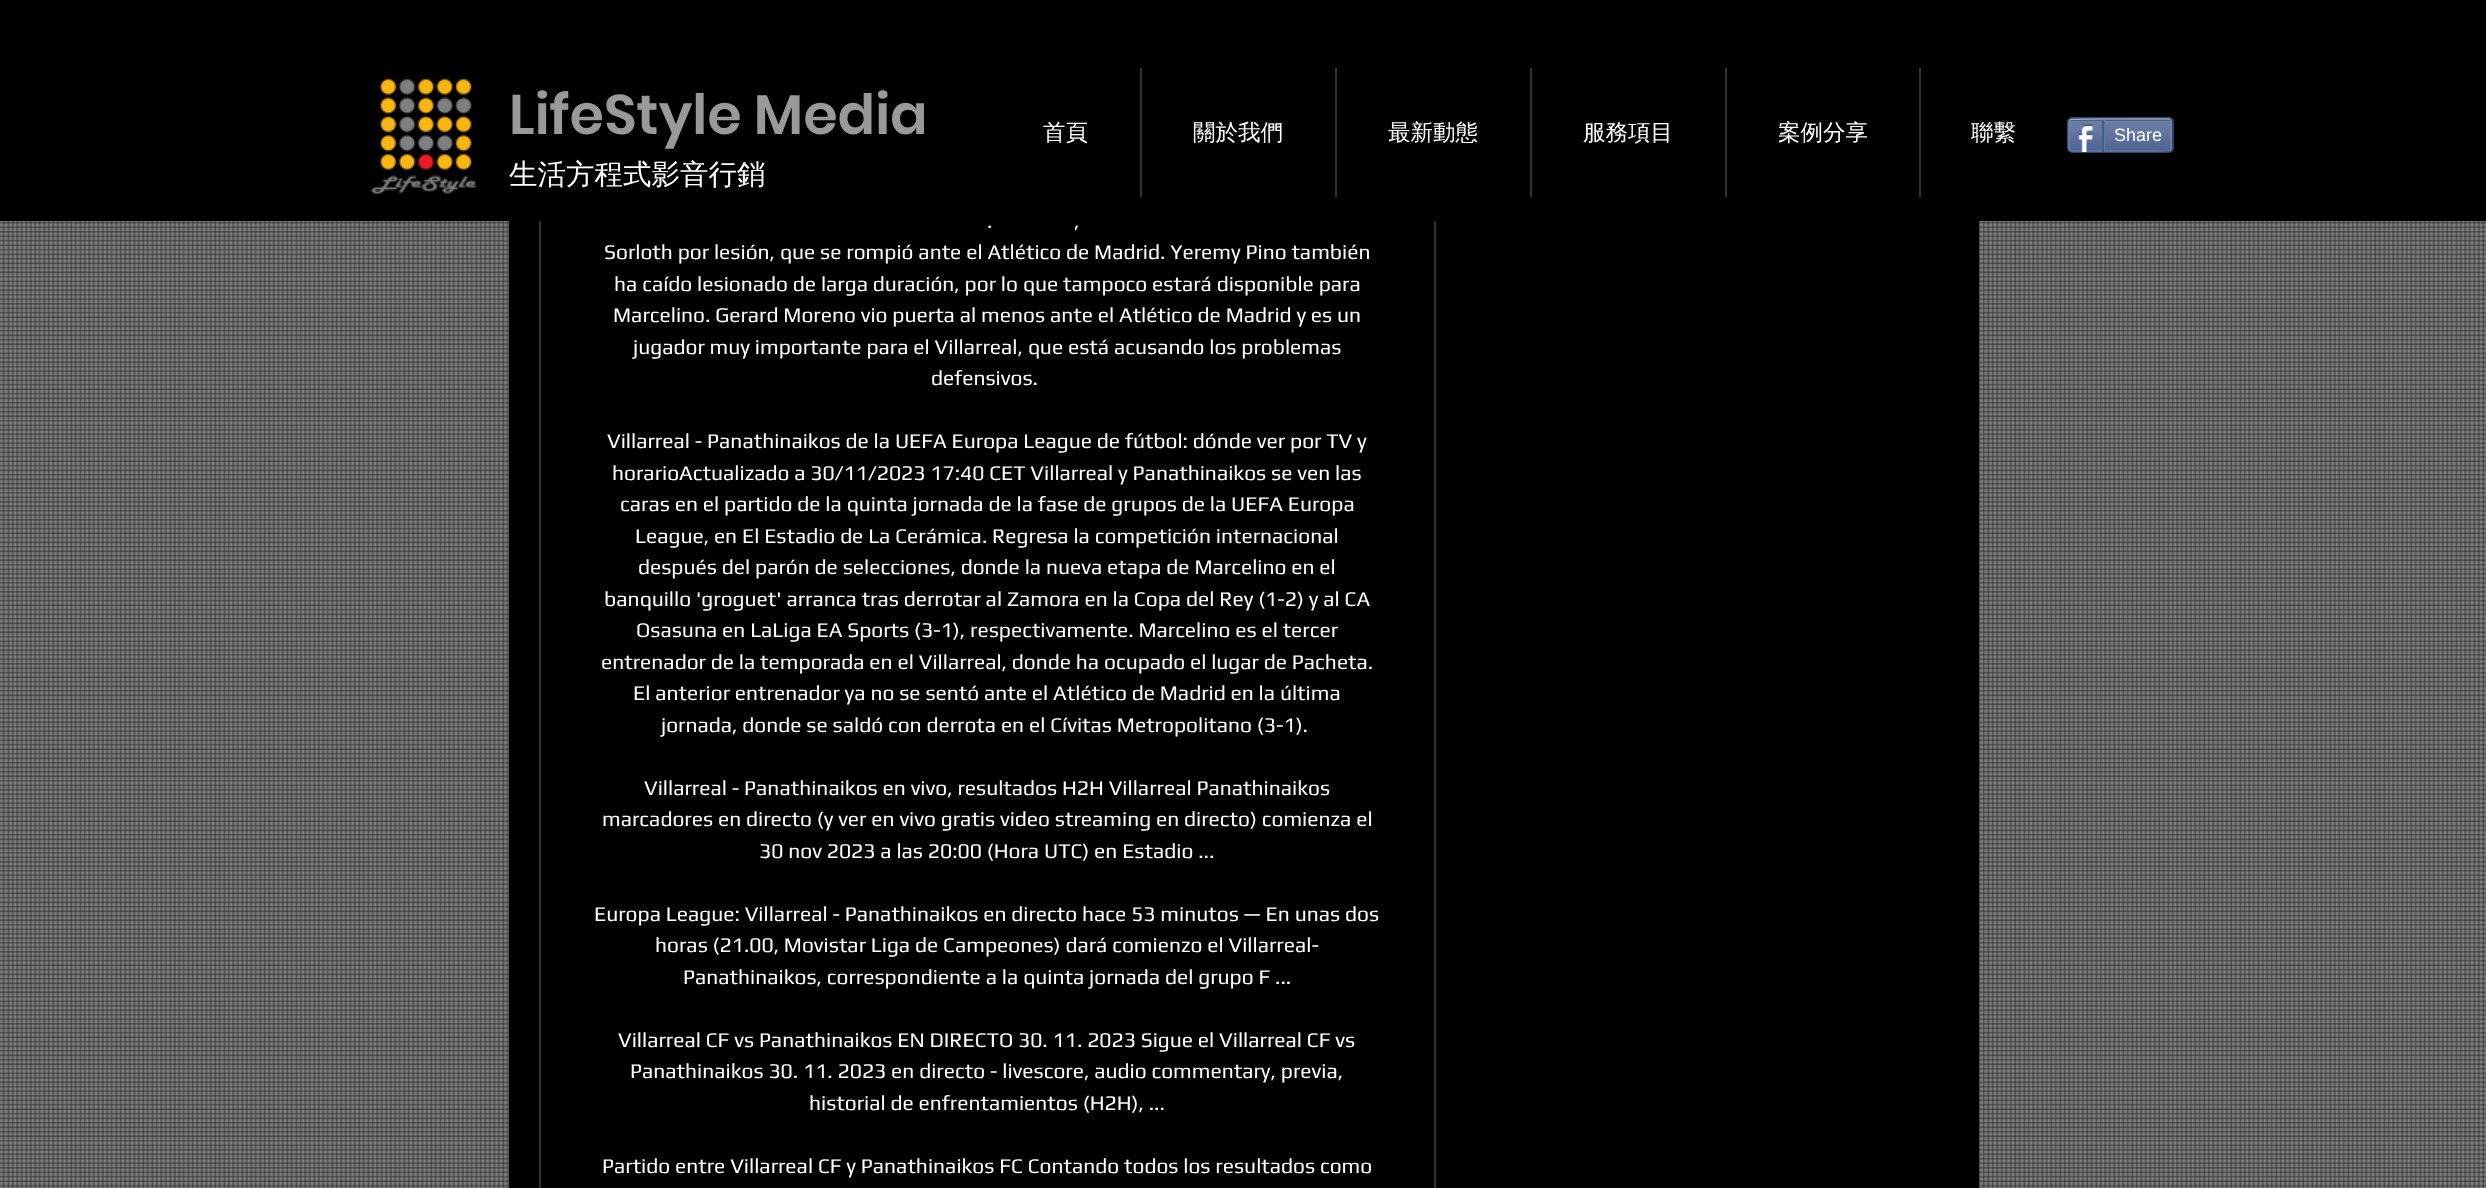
(async () => {
  const canvas = document.querySelector("canvas");
  canvas.width = 2486;
  canvas.height = 1188;
  const ctx = canvas.getContext("2d");
  ctx.miterLimit = 4;
  ctx.fontKerning = "normal";
  async function loadImage(src) {
    const img = new Image();
    img.src = src;
    await img.decode();
    return img;
  }
  let path;

  ctx.fillStyle = "#7d7d7d";
  ctx.fillRect(0, 0, 2486, 1188);
  ctx.drawImage(await loadImage("img/4.png"), 0, 221, 2486, 967);
  ctx.fillStyle = "#000000";
  ctx.fillRect(509, 221, 1470, 967);
  ctx.strokeStyle = "#333333";
  ctx.lineWidth = 2;
  ctx.strokeRect(540, -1, 895, 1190);
  ctx.fillRect(0, 0, 2486, 221);
  ctx.drawImage(await loadImage("img/1.png"), 370, 78, 107, 117);
  for (const [x, y, w, h, color] of [
    [1140, 68, 2, 129, "#333333"],
    [1335, 68, 2, 129, "#333333"],
    [1530, 68, 2, 129, "#333333"],
    [1725, 68, 2, 129, "#333333"],
    [1919, 68, 2, 129, "#333333"],
  ]) {
    ctx.fillStyle = color;
    ctx.fillRect(x, y, w, h);
  }
  ctx.beginPath();
  ctx.roundRect(2068, 118, 105, 34, 4);
  ctx.strokeStyle = "#2d4565";
  ctx.stroke();
  ctx.drawImage(await loadImage("img/2.png"), 2068, 119, 104, 33);
  path = new Path2D("M2070 120L2070.5 119.5C2072 118.5 2144.5 119 2153 119H2169L2170.5 120");
  ctx.strokeStyle = "#9aabc6";
  ctx.lineWidth = 1.5;
  ctx.stroke(path);
  path = new Path2D("M2170.5 120C2171 120.5 2171 121 2171 121.5V148.5C2171 149 2171 149.5 2170.5 150");
  ctx.strokeStyle = "#6f83ad";
  ctx.stroke(path);
  path = new Path2D("M2170.5 150L2170 150.5C2168.5 151.5 2096 151 2088 151H2071.5L2070 150");
  ctx.strokeStyle = "#6176a3";
  ctx.stroke(path);
  path = new Path2D("M2070 150C2069.5 149.5 2069 149 2069 148.5V121.5C2069 121 2069.5 120.5 2070 120");
  ctx.strokeStyle = "#6f83ad";
  ctx.stroke(path);
  ctx.drawImage(await loadImage("img/3.png"), 2077, 124, 16, 28);
  ctx.fillStyle = "#425e85";
  ctx.fillRect(2102, 120, 2, 32);
  ctx.fillStyle = "#6176a3";
  ctx.fillRect(2104, 120, 1, 30);
  ctx.font = "600 55.5px Poppins";
  ctx.fillStyle = "#999999";
  ctx.fillText("LifeStyle Media", 509, 134);
  ctx.font = "500 28.5px WenQuanYi Zen Hei";
  ctx.fillStyle = "#ffffff";
  ctx.fillText("生活方程式影音行銷", 509, 184);
  ctx.font = "500 22.5px WenQuanYi Zen Hei";
  for (const [text, x, y] of [
    ["首頁", 1043, 140],
    ["關於我們", 1193, 140],
    ["最新動態", 1388, 140],
    ["服務項目", 1583, 140],
    ["案例分享", 1778, 140],
    ["聯繫", 1971, 140],
  ]) {
    ctx.fillText(text, x, y);
  }
  ctx.font = "18px Liberation Sans";
  ctx.fillText("Share", 2114, 141);
  ctx.font = "21px Play";
  for (const [text, x, y] of [
    [".", 987, 228],
    [",", 1074, 228],
    ["Sorloth por lesión, que se rompió ante el Atlético de Madrid. Yeremy Pino también", 604, 259],
    ["ha caído lesionado de larga duración, por lo que tampoco estará disponible para", 614, 291],
    ["Marcelino. Gerard Moreno vio puerta al menos ante el Atlético de Madrid y es un", 613, 322],
    ["jugador muy importante para el Villarreal, que está acusando los problemas", 633, 354],
    ["defensivos.", 931, 385],
    ["Villarreal - Panathinaikos de la UEFA Europa League de fútbol: dónde ver por TV y", 607, 448],
    ["horarioActualizado a 30/11/2023 17:40 CET Villarreal y Panathinaikos se ven las", 612, 480],
    ["caras en el partido de la quinta jornada de la fase de grupos de la UEFA Europa", 620, 511],
    ["League, en El Estadio de La Cerámica. Regresa la competición internacional", 635, 543],
    ["después del parón de selecciones, donde la nueva etapa de Marcelino en el", 638, 574],
    ["banquillo 'groguet' arranca tras derrotar al Zamora en la Copa del Rey (1-2) y al CA", 604, 606],
    ["Osasuna en LaLiga EA Sports (3-1), respectivamente. Marcelino es el tercer", 636, 637],
    ["entrenador de la temporada en el Villarreal, donde ha ocupado el lugar de Pacheta.", 601, 669],
    ["El anterior entrenador ya no se sentó ante el Atlético de Madrid en la última", 633, 700],
    ["jornada, donde se saldó con derrota en el Cívitas Metropolitano (3-1).", 661, 732],
    ["Villarreal - Panathinaikos en vivo, resultados H2H Villarreal Panathinaikos", 644, 795],
    ["marcadores en directo (y ver en vivo gratis video streaming en directo) comienza el", 602, 826],
    ["30 nov 2023 a las 20:00 (Hora UTC) en Estadio ...", 759, 858],
    ["Europa League: Villarreal - Panathinaikos en directo hace 53 minutos — En unas dos", 594, 921],
    ["horas (21.00, Movistar Liga de Campeones) dará comienzo el Villarreal-", 655, 952],
    ["Panathinaikos, correspondiente a la quinta jornada del grupo F ...", 683, 984],
    ["Villarreal CF vs Panathinaikos EN DIRECTO 30. 11. 2023 Sigue el Villarreal CF vs", 618, 1047],
    ["Panathinaikos 30. 11. 2023 en directo - livescore, audio commentary, previa,", 630, 1078],
    ["historial de enfrentamientos (H2H), ...", 809, 1110],
    ["Partido entre Villarreal CF y Panathinaikos FC Contando todos los resultados como", 602, 1173],
  ]) {
    ctx.fillText(text, x, y);
  }
})();
